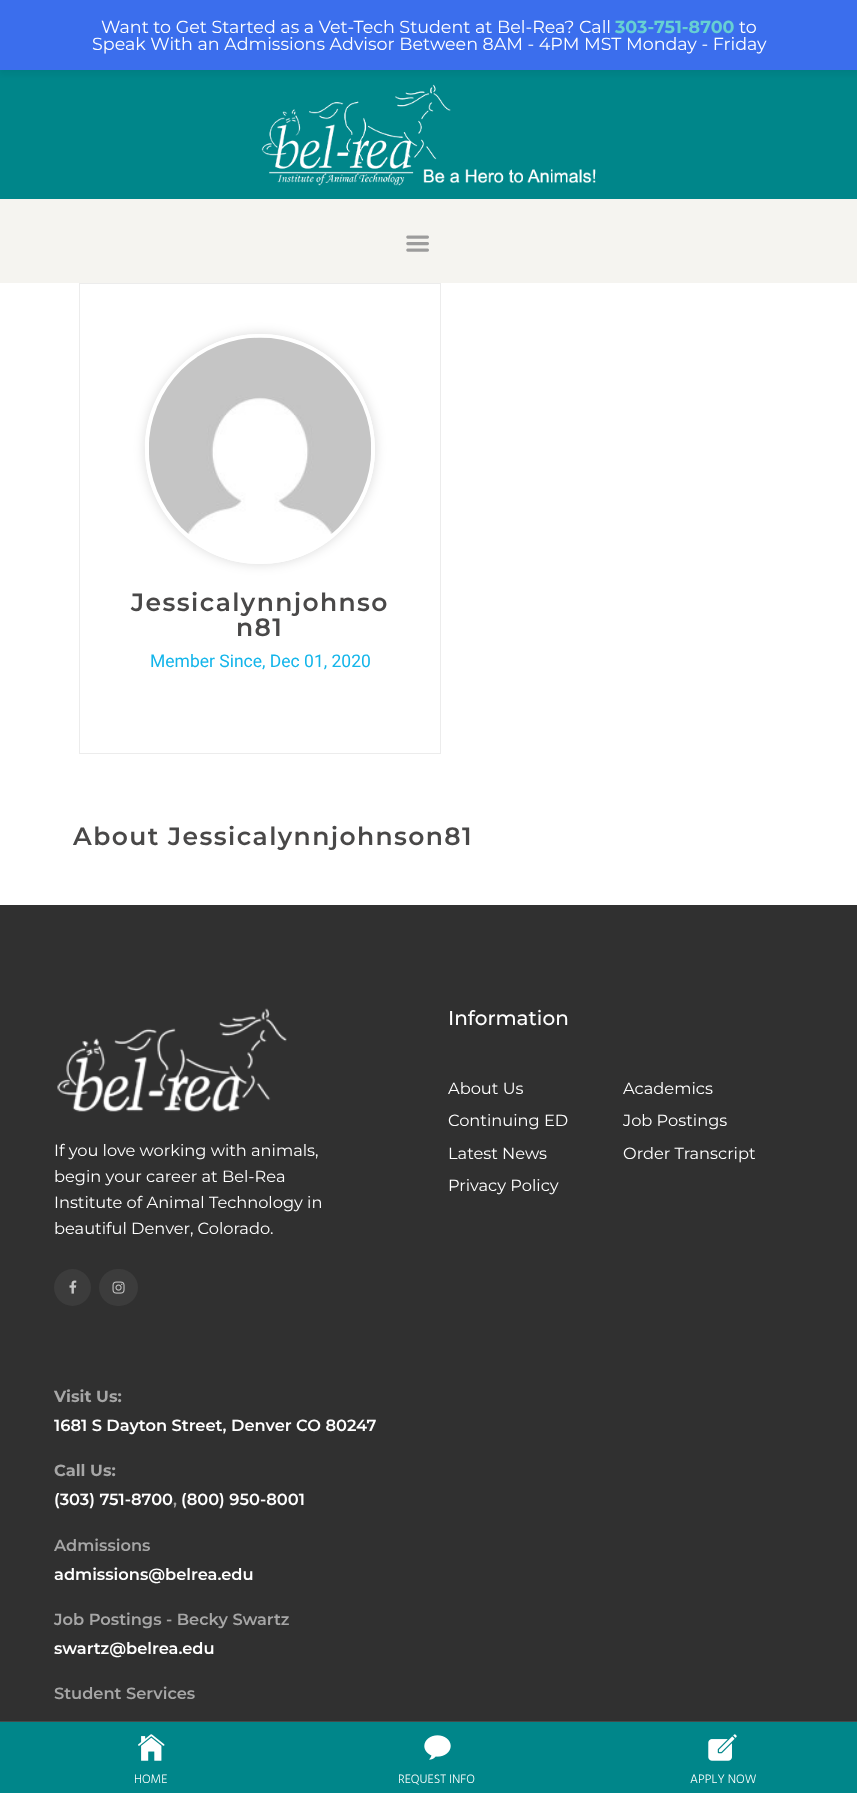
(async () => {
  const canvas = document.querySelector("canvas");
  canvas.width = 857;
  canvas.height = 1793;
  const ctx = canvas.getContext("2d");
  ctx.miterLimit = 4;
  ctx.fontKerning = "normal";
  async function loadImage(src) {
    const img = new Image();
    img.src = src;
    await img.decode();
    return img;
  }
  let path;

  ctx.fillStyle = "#ffffff";
  ctx.fillRect(0, 0, 857, 1793);
  ctx.fillStyle = "#00868a";
  ctx.fillRect(0, 70, 857, 129);
  ctx.fillStyle = "rgba(0, 0, 0, 0.05)";
  ctx.filter = "blur(2.5px)";
  ctx.beginPath();
  ctx.rect(0, 4, 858, 70);
  ctx.fill();
  ctx.filter = "none";
  ctx.fillStyle = "#3b6eed";
  ctx.fillRect(0, 0, 857, 70);
  ctx.drawImage(await loadImage("img/1.png"), 261, 84, 335, 102);
  ctx.fillStyle = "#f5f4f0";
  ctx.fillRect(0, 199, 857, 84);
  ctx.drawImage(await loadImage("img/2.png"), 406, 235, 23, 17);
  ctx.strokeStyle = "#ececec";
  ctx.strokeRect(79.5, 283.5, 361, 470);
  ctx.save();
  path = new Path2D("M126 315H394V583H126ZM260 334C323.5 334 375 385.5 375 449C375 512.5 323.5 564 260 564C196.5 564 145 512.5 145 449C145 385.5 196.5 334 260 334Z");
  ctx.clip(path, "evenodd");
  ctx.fillStyle = "rgba(0, 0, 0, 0.15)";
  ctx.filter = "blur(6px)";
  ctx.beginPath();
  ctx.roundRect(145, 334, 230, 230, 115);
  ctx.fill();
  ctx.filter = "none";
  ctx.restore();
  ctx.beginPath();
  ctx.arc(260, 449, 113, 0, Math.PI * 2);
  ctx.strokeStyle = "#ffffff";
  ctx.lineWidth = 4;
  ctx.stroke();
  ctx.drawImage(await loadImage("img/3.png"), 149, 337, 222, 197);
  ctx.fillStyle = "#303030";
  ctx.fillRect(0, 905, 857, 816);
  ctx.drawImage(await loadImage("img/4.png"), 57, 1008, 230, 104);
  ctx.fillStyle = "#3c3c3c";
  ctx.beginPath();
  ctx.arc(72.5, 1287.5, 18.5, 0, Math.PI * 2);
  ctx.fill();
  ctx.drawImage(await loadImage("img/5.png"), 69, 1280, 8, 14);
  ctx.beginPath();
  ctx.roundRect(99, 1269, 39, 37, 18.5);
  ctx.fill();
  ctx.drawImage(await loadImage("img/6.png"), 112, 1281, 13, 13);
  ctx.fillStyle = "#00868a";
  ctx.fillRect(0, 1722, 857, 71);
  ctx.fillStyle = "#43494b";
  ctx.fillRect(0, 1721, 857, 1);
  ctx.drawImage(await loadImage("img/7.png"), 138, 1734, 27, 27);
  ctx.drawImage(await loadImage("img/8.png"), 424, 1735, 27, 25);
  ctx.drawImage(await loadImage("img/9.png"), 708, 1734, 29, 27);
  ctx.font = "17.5px Montserrat";
  ctx.fillStyle = "#ffffff";
  ctx.fillText("Want to Get Started as a Vet-Tech Student at Bel-Rea? Call", 101, 33);
  ctx.font = "bold 17.5px Montserrat";
  ctx.fillStyle = "#67d0d3";
  ctx.fillText("303-751-8700", 615, 33);
  ctx.font = "17.5px Montserrat";
  ctx.fillStyle = "#ffffff";
  ctx.fillText("to", 739, 33);
  ctx.fillText("Speak With an Admissions Advisor Between 8AM - 4PM MST Monday - Friday", 92, 50);
  ctx.letterSpacing = "1.4px";
  ctx.font = "600 25px Montserrat";
  ctx.fillStyle = "#494848";
  ctx.fillText("Jessicalynnjohnso", 131, 611);
  ctx.fillText("n81", 236, 636);
  ctx.letterSpacing = "0px";
  ctx.font = "17.5px Roboto";
  ctx.fillStyle = "#13b5ea";
  ctx.fillText("Member Since, Dec 01, 2020", 150, 667);
  ctx.letterSpacing = "1.4px";
  ctx.font = "600 25px Montserrat";
  ctx.fillStyle = "#494848";
  ctx.fillText("About Jessicalynnjohnson81", 73, 845);
  ctx.letterSpacing = "0px";
  ctx.font = "16.25px Montserrat";
  ctx.fillStyle = "#ffffff";
  for (const [text, x, y] of [
    ["If you love working with animals,", 54, 1156],
    ["begin your career at Bel-Rea", 54, 1182],
    ["Institute of Animal Technology in", 54, 1208],
    ["beautiful Denver, Colorado.", 54, 1234],
  ]) {
    ctx.fillText(text, x, y);
  }
  ctx.font = "500 20px Montserrat";
  ctx.fillText("Information", 448, 1025);
  ctx.font = "16.25px Montserrat";
  for (const [text, x, y] of [
    ["About Us", 448, 1094],
    ["Academics", 623, 1094],
    ["Continuing ED", 448, 1126],
    ["Job Postings", 623, 1126],
    ["Latest News", 448, 1159],
    ["Order Transcript", 623, 1159],
    ["Privacy Policy", 448, 1191],
  ]) {
    ctx.fillText(text, x, y);
  }
  ctx.font = "bold 16.25px Montserrat";
  ctx.fillStyle = "#a6a6a6";
  ctx.fillText("Visit Us:", 54, 1402);
  ctx.font = "600 16.25px Montserrat";
  ctx.fillStyle = "#ffffff";
  ctx.fillText("1681 S Dayton Street, Denver CO 80247", 54, 1431);
  ctx.font = "bold 16.25px Montserrat";
  ctx.fillStyle = "#a6a6a6";
  ctx.fillText("Call Us:", 54, 1476);
  ctx.font = "600 16.25px Montserrat";
  ctx.fillStyle = "#ffffff";
  ctx.fillText("(303) 751-8700", 54, 1505);
  ctx.fillStyle = "#a6a6a6";
  ctx.fillText(",", 173, 1505);
  ctx.fillStyle = "#ffffff";
  ctx.fillText("(800) 950-8001", 181, 1505);
  ctx.fillStyle = "#a6a6a6";
  ctx.fillText("Admissions", 54, 1551);
  ctx.fillStyle = "#ffffff";
  ctx.fillText("admissions@belrea.edu", 54, 1580);
  ctx.fillStyle = "#a6a6a6";
  ctx.fillText("Job Postings - Becky Swartz", 54, 1625);
  ctx.fillStyle = "#ffffff";
  ctx.fillText("swartz@belrea.edu", 54, 1654);
  ctx.fillStyle = "#a6a6a6";
  ctx.fillText("Student Services", 54, 1699);
  ctx.font = "300 12.5px Hind";
  ctx.fillStyle = "#ffffff";
  for (const [text, x, y] of [
    ["HOME", 134, 1783],
    ["REQUEST INFO", 398, 1783],
    ["APPLY NOW", 690, 1783],
  ]) {
    ctx.fillText(text, x, y);
  }
})();
